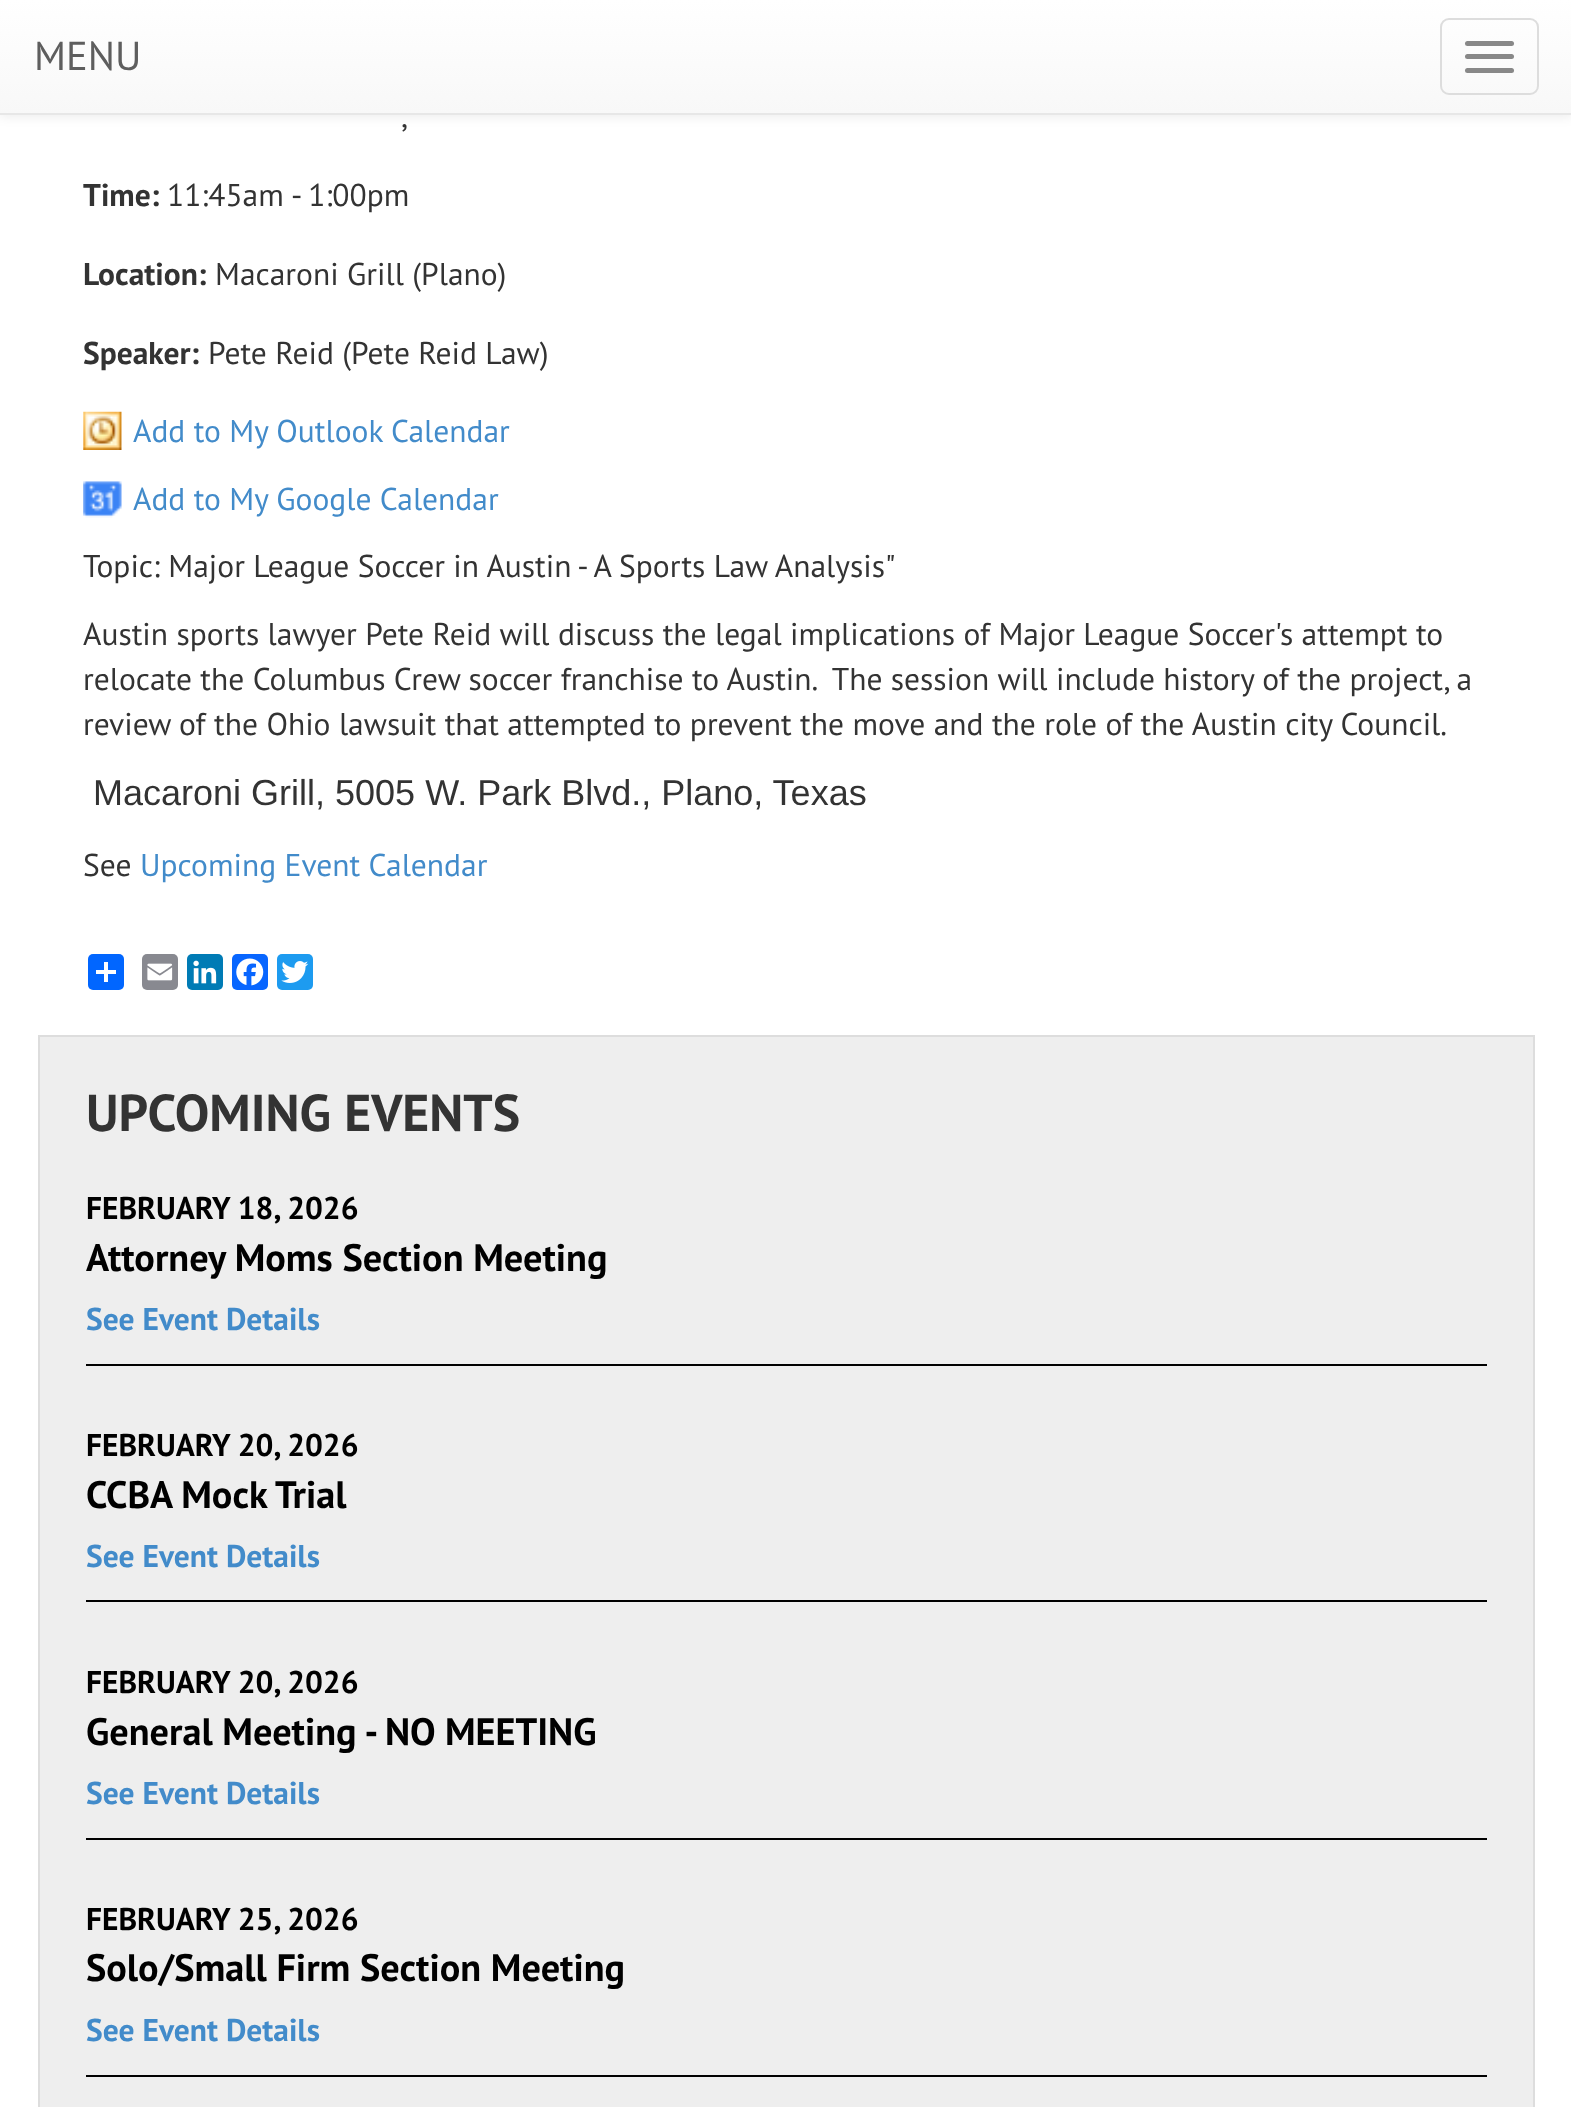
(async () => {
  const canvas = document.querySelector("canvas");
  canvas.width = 1571;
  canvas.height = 2107;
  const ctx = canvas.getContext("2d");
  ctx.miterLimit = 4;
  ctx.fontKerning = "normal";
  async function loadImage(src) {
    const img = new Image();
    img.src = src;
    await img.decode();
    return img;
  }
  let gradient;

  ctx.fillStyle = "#ffffff";
  ctx.fillRect(0, 0, 1571, 2107);
  ctx.fillStyle = "rgba(0, 0, 0, 0.07)";
  ctx.filter = "blur(5.5px)";
  ctx.beginPath();
  ctx.rect(0, 2, 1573, 115);
  ctx.fill();
  ctx.filter = "none";
  gradient = ctx.createLinearGradient(786, 0, 786, 113);
  gradient.addColorStop(0, "#ffffff");
  gradient.addColorStop(1, "#f8f8f8");
  ctx.fillStyle = gradient;
  ctx.fillRect(0, 0, 1571, 113);
  ctx.fillStyle = "#e7e7e7";
  ctx.fillRect(0, 113, 1571, 2);
  ctx.beginPath();
  ctx.roundRect(1441, 19, 97, 75, 8);
  ctx.strokeStyle = "#dddddd";
  ctx.lineWidth = 2;
  ctx.stroke();
  ctx.fillStyle = "#888888";
  ctx.beginPath();
  ctx.roundRect(1465, 41, 49, 5, 2.5);
  ctx.fill();
  ctx.beginPath();
  ctx.roundRect(1465, 54, 49, 5, 2.5);
  ctx.fill();
  ctx.beginPath();
  ctx.roundRect(1465, 68, 49, 5, 2.5);
  ctx.fill();
  ctx.drawImage(await loadImage("img/1.png"), 83, 411, 39, 39);
  ctx.drawImage(await loadImage("img/2.png"), 83, 481, 39, 37);
  ctx.fillStyle = "#0166ff";
  ctx.beginPath();
  ctx.roundRect(88, 954, 36, 36, 5);
  ctx.fill();
  ctx.fillStyle = "#ffffff";
  ctx.fillRect(104, 962, 4, 20);
  ctx.fillRect(96, 970, 20, 4);
  ctx.fillStyle = "#888990";
  ctx.beginPath();
  ctx.roundRect(142, 954, 36, 36, 5);
  ctx.fill();
  ctx.drawImage(await loadImage("img/3.png"), 147, 963, 26, 18);
  ctx.fillStyle = "#007bb5";
  ctx.beginPath();
  ctx.roundRect(187, 954, 36, 36, 5);
  ctx.fill();
  ctx.drawImage(await loadImage("img/4.png"), 193, 960, 24, 24);
  ctx.fillStyle = "#0866ff";
  ctx.beginPath();
  ctx.roundRect(232, 954, 36, 36, 5);
  ctx.fill();
  ctx.drawImage(await loadImage("img/5.png"), 236, 958, 28, 28);
  ctx.fillStyle = "#1d9bf0";
  ctx.beginPath();
  ctx.roundRect(277, 954, 36, 36, 5);
  ctx.fill();
  ctx.drawImage(await loadImage("img/6.png"), 281, 961, 28, 22);
  ctx.fillStyle = "#eeeeee";
  ctx.beginPath();
  ctx.rect(39, 1036, 1495, 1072);
  ctx.fill();
  ctx.stroke();
  for (const [x, y, w, h, color] of [
    [86, 1364, 1401, 2, "#000000"],
    [86, 1600, 1401, 2, "#000000"],
    [86, 1838, 1401, 2, "#000000"],
    [86, 2075, 1401, 2, "#000000"],
  ]) {
    ctx.fillStyle = color;
    ctx.fillRect(x, y, w, h);
  }
  ctx.font = "40.5px PT Sans";
  ctx.fillStyle = "#5e5e5e";
  ctx.fillText("MENU", 34, 70);
  ctx.font = "31.5px PT Sans";
  ctx.fillStyle = "#333333";
  ctx.fillText(",", 401, 127);
  ctx.font = "bold 31.5px PT Sans";
  ctx.fillText("Time:", 83, 206);
  ctx.font = "31.5px PT Sans";
  ctx.fillText("11:45am", 167, 206);
  ctx.fillText("- 1:00pm", 291, 206);
  ctx.font = "bold 31.5px PT Sans";
  ctx.fillText("Location:", 83, 285);
  ctx.font = "31.5px PT Sans";
  ctx.fillText("Macaroni Grill (Plano)", 215, 285);
  ctx.font = "bold 31.5px PT Sans";
  ctx.fillText("Speaker:", 83, 364);
  ctx.font = "31.5px PT Sans";
  ctx.fillText("Pete Reid (Pete Reid Law)", 208, 364);
  ctx.fillStyle = "#428bca";
  ctx.fillText("Add to My Outlook Calendar", 133, 442);
  ctx.fillText("Add to My Google Calendar", 133, 510);
  ctx.fillStyle = "#333333";
  for (const [text, x, y] of [
    ["Topic: Major League Soccer in Austin - A Sports Law Analysis\"", 83, 577],
    ["Austin sports lawyer Pete Reid will discuss the legal implications of Major League Soccer's attempt to", 83, 645],
    ["relocate the Columbus Crew soccer franchise to Austin.  The session will include history of the project, a", 83, 690],
    ["review of the Ohio lawsuit that attempted to prevent the move and the role of the Austin city Council.", 83, 735],
  ]) {
    ctx.fillText(text, x, y);
  }
  ctx.font = "36px Liberation Sans";
  ctx.fillText("Macaroni Grill, 5005 W. Park Blvd., Plano, Texas", 93, 805);
  ctx.font = "31.5px PT Sans";
  ctx.fillText("See", 83, 876);
  ctx.fillStyle = "#428bca";
  ctx.fillText("Upcoming Event Calendar", 140, 876);
  ctx.font = "bold 51.75px PT Sans";
  ctx.fillStyle = "#333333";
  ctx.fillText("UPCOMING EVENTS", 86, 1131);
  ctx.font = "bold 31.5px PT Sans";
  ctx.fillStyle = "#000000";
  ctx.fillText("FEBRUARY 18, 2026", 86, 1219);
  ctx.font = "bold 38.25px PT Sans";
  ctx.fillText("Attorney Moms Section Meeting", 86, 1271);
  ctx.font = "bold 31.5px PT Sans";
  ctx.fillStyle = "#428bca";
  ctx.fillText("See Event Details", 86, 1330);
  ctx.fillStyle = "#000000";
  ctx.fillText("FEBRUARY 20, 2026", 86, 1456);
  ctx.font = "bold 38.25px PT Sans";
  ctx.fillText("CCBA Mock Trial", 86, 1508);
  ctx.font = "bold 31.5px PT Sans";
  ctx.fillStyle = "#428bca";
  ctx.fillText("See Event Details", 86, 1567);
  ctx.fillStyle = "#000000";
  ctx.fillText("FEBRUARY 20, 2026", 86, 1693);
  ctx.font = "bold 38.25px PT Sans";
  ctx.fillText("General Meeting - NO MEETING", 86, 1745);
  ctx.font = "bold 31.5px PT Sans";
  ctx.fillStyle = "#428bca";
  ctx.fillText("See Event Details", 86, 1804);
  ctx.fillStyle = "#000000";
  ctx.fillText("FEBRUARY 25, 2026", 86, 1930);
  ctx.font = "bold 38.25px PT Sans";
  ctx.fillText("Solo/Small Firm Section Meeting", 86, 1981);
  ctx.font = "bold 31.5px PT Sans";
  ctx.fillStyle = "#428bca";
  ctx.fillText("See Event Details", 86, 2041);
})();
